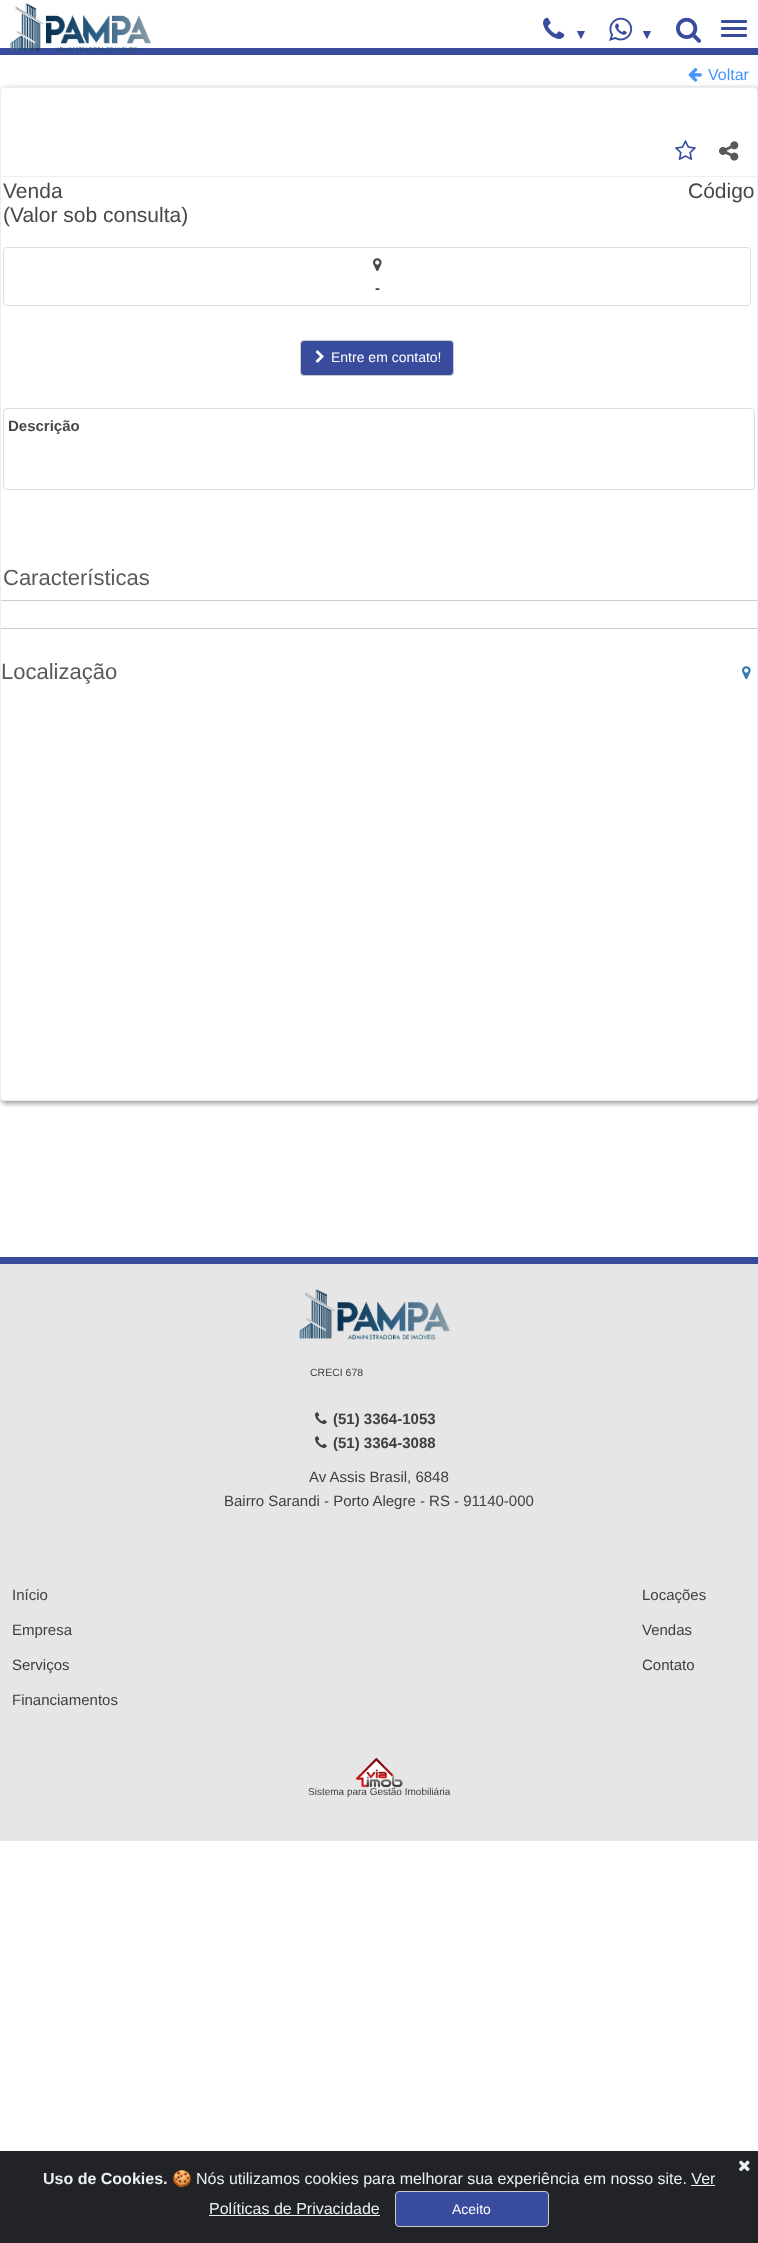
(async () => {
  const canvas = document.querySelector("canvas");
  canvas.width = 758;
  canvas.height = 2243;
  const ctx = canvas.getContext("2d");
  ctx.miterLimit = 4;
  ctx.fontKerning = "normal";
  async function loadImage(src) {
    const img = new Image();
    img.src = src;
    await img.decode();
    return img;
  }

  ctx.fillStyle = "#ffffff";
  ctx.fillRect(0, 0, 758, 2243);
  ctx.fillStyle = "#384b9d";
  ctx.fillRect(0, 48, 758, 7);
  ctx.drawImage(await loadImage("img/1.png"), 10, 3, 141, 49);
  ctx.drawImage(await loadImage("img/2.png"), 543, 17, 22, 22);
  ctx.drawImage(await loadImage("img/3.png"), 609, 17, 24, 24);
  ctx.drawImage(await loadImage("img/4.png"), 676, 17, 25, 26);
  ctx.beginPath();
  ctx.roundRect(721, 20, 26, 3, 1);
  ctx.fill();
  ctx.beginPath();
  ctx.roundRect(721, 27, 26, 3, 1);
  ctx.fill();
  ctx.beginPath();
  ctx.roundRect(721, 34, 26, 3, 1);
  ctx.fill();
  ctx.drawImage(await loadImage("img/5.png"), 688, 67, 14, 15);
  ctx.fillStyle = "#aaaaaa";
  ctx.filter = "blur(2px)";
  ctx.beginPath();
  ctx.roundRect(1, 88, 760, 1016, 5);
  ctx.fill();
  ctx.filter = "none";
  ctx.fillStyle = "#ffffff";
  ctx.beginPath();
  ctx.roundRect(0.5, 87.5, 757, 1013, 3.5);
  ctx.fill();
  ctx.strokeStyle = "#eeeeee";
  ctx.stroke();
  ctx.drawImage(await loadImage("img/6.png"), 675, 140, 21, 20);
  ctx.drawImage(await loadImage("img/7.png"), 719, 141, 20, 20);
  ctx.fillStyle = "#eeeeee";
  ctx.fillRect(3, 176, 753, 1);
  ctx.beginPath();
  ctx.roundRect(3.5, 247.5, 747, 58, 3.5);
  ctx.strokeStyle = "#dddddd";
  ctx.stroke();
  ctx.drawImage(await loadImage("img/8.png"), 373, 258, 9, 13);
  ctx.fillStyle = "#384b9d";
  ctx.beginPath();
  ctx.roundRect(300.5, 340.5, 153, 35, 3.5);
  ctx.fill();
  ctx.strokeStyle = "#cccccc";
  ctx.stroke();
  ctx.drawImage(await loadImage("img/9.png"), 315, 350, 9, 13);
  ctx.beginPath();
  ctx.roundRect(3.5, 408.5, 751, 81, 3.5);
  ctx.strokeStyle = "#dddddd";
  ctx.stroke();
  ctx.fillStyle = "#cccccc";
  ctx.fillRect(1, 600, 756, 1);
  ctx.fillRect(1, 628, 756, 1);
  ctx.drawImage(await loadImage("img/10.png"), 742, 666, 9, 13);
  ctx.fillStyle = "#e6e6e6";
  ctx.fillRect(0, 1264, 758, 577);
  ctx.fillStyle = "#384b9d";
  ctx.fillRect(0, 1257, 758, 7);
  ctx.drawImage(await loadImage("img/11.png"), 299, 1289, 151, 51);
  ctx.drawImage(await loadImage("img/12.png"), 315, 1412, 12, 12);
  ctx.drawImage(await loadImage("img/12.png"), 315, 1436, 12, 12);
  ctx.drawImage(await loadImage("img/13.png"), 355, 1757, 48, 31);
  ctx.fillStyle = "#212327";
  ctx.fillRect(0, 2151, 758, 92);
  ctx.drawImage(await loadImage("img/14.png"), 739, 2160, 11, 12);
  ctx.fillStyle = "#ecf0f1";
  ctx.fillRect(691, 2185, 24, 1);
  ctx.fillRect(209, 2215, 171, 1);
  ctx.fillStyle = "#384b9d";
  ctx.beginPath();
  ctx.roundRect(395.5, 2191.5, 153, 35, 3.5);
  ctx.fill();
  ctx.strokeStyle = "#cccccc";
  ctx.stroke();
  ctx.font = "14px Liberation Sans";
  ctx.fillText("▼", 574, 39);
  ctx.fillText("▼", 640, 39);
  ctx.font = "16px Liberation Sans";
  ctx.fillStyle = "#4695fc";
  ctx.fillText("Voltar", 708, 80);
  ctx.font = "21px Liberation Sans";
  ctx.fillStyle = "#484848";
  for (const [text, x, y] of [
    ["Venda", 3, 198],
    ["(Valor sob consulta)", 3, 222],
    ["Código", 688, 198],
  ]) {
    ctx.fillText(text, x, y);
  }
  ctx.font = "bold 15px Liberation Sans";
  ctx.fillText("-", 375, 293);
  ctx.font = "14px Liberation Sans";
  ctx.fillStyle = "#ffffff";
  ctx.fillText("Entre em contato!", 331, 362);
  ctx.font = "bold 15px Liberation Sans";
  ctx.fillStyle = "#484848";
  ctx.fillText("Descrição", 8, 431);
  ctx.font = "22px Liberation Sans";
  ctx.fillStyle = "#595959";
  ctx.fillText("Características", 3, 585);
  ctx.fillText("Localização", 1, 679);
  ctx.font = "10.5px Liberation Sans";
  ctx.fillStyle = "#404040";
  ctx.fillText("CRECI 678", 310, 1376);
  ctx.font = "bold 15px Liberation Sans";
  ctx.fillText("(51) 3364-1053", 333, 1424);
  ctx.fillText("(51) 3364-3088", 333, 1448);
  ctx.font = "15px Liberation Sans";
  for (const [text, x, y] of [
    ["Av Assis Brasil, 6848", 309, 1482],
    ["Bairro Sarandi - Porto Alegre - RS - 91140-000", 224, 1506],
    ["Início", 12, 1600],
    ["Empresa", 12, 1635],
    ["Serviços", 12, 1670],
    ["Financiamentos", 12, 1705],
    ["Locações", 642, 1600],
    ["Vendas", 642, 1635],
    ["Contato", 642, 1670],
  ]) {
    ctx.fillText(text, x, y);
  }
  ctx.font = "10px Liberation Sans";
  ctx.fillText("Sistema para Gestão Imobiliária", 308, 1795);
  ctx.font = "bold 16px Liberation Sans";
  ctx.fillStyle = "#ecf0f1";
  ctx.fillText("Uso de Cookies.", 43, 2184);
  ctx.font = "16px Noto Color Emoji";
  ctx.fillText("🍪", 172, 2184);
  ctx.font = "16px Liberation Sans";
  ctx.fillText("Nós utilizamos cookies para melhorar sua experiência em nosso site. Ver", 196, 2184);
  ctx.fillText("Políticas de Privacidade", 209, 2214);
  ctx.font = "14px Liberation Sans";
  ctx.fillStyle = "#ffffff";
  ctx.fillText("Aceito", 452, 2214);
})();
